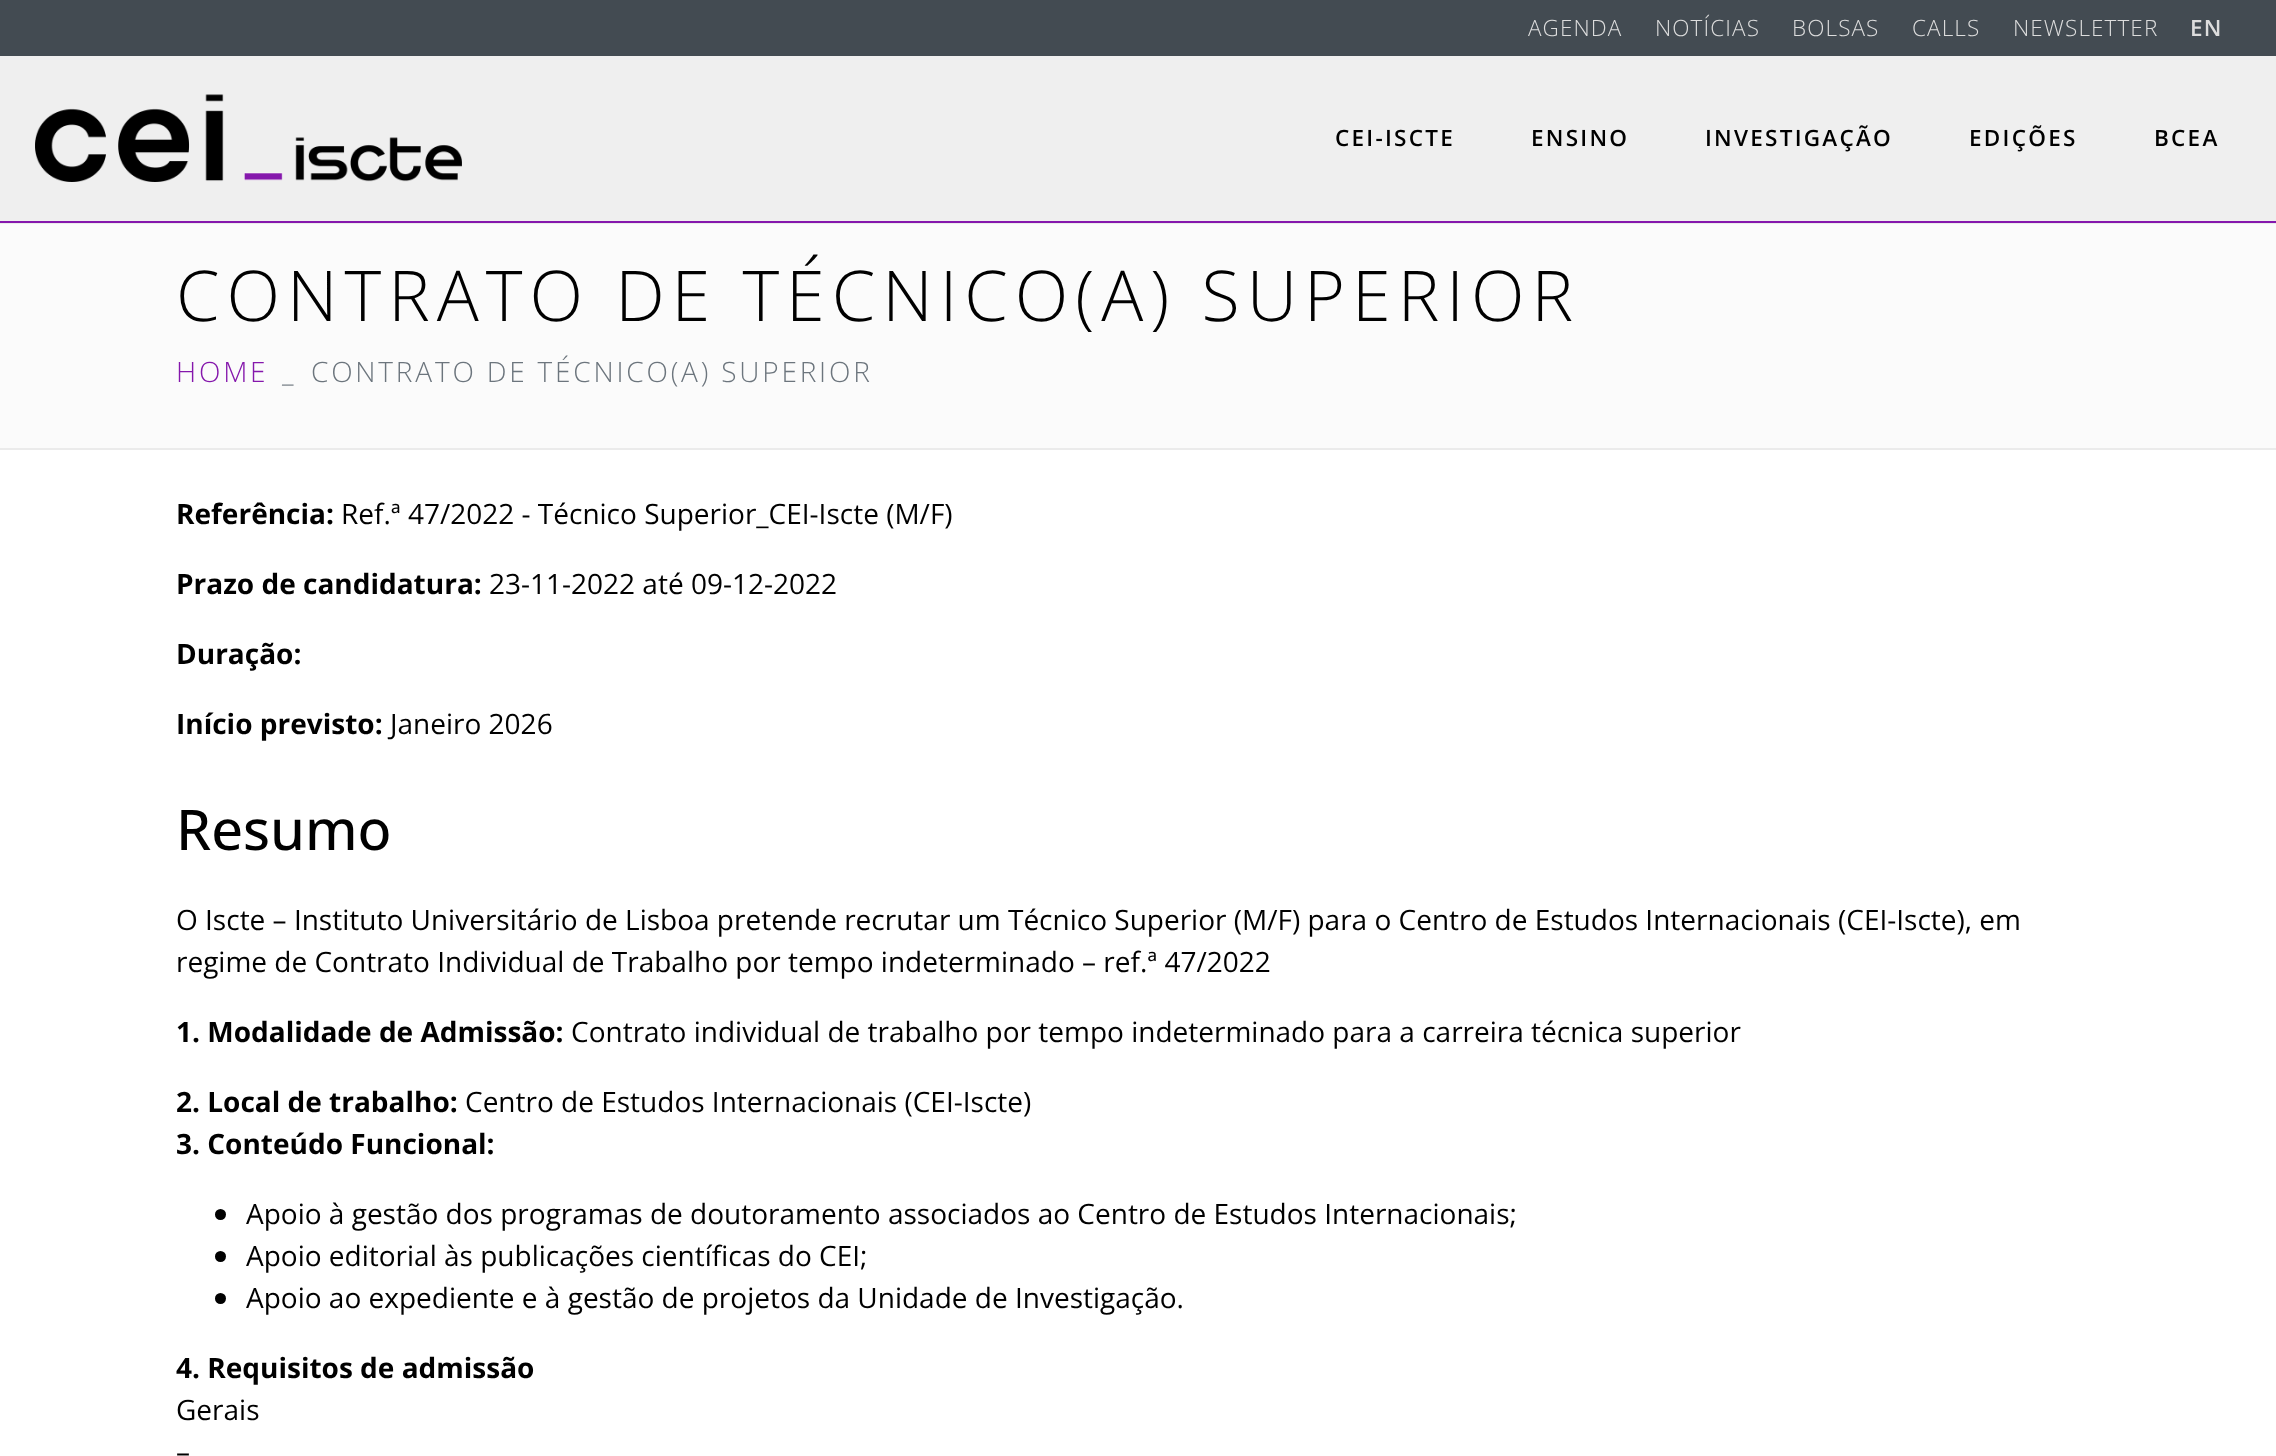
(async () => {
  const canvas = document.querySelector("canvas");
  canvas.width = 2276;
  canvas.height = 1456;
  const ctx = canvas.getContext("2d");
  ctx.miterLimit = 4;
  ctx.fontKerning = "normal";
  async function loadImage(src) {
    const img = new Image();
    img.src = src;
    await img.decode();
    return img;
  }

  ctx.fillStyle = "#ffffff";
  ctx.fillRect(0, 0, 2276, 1456);
  for (const [x, y, w, h, color] of [
    [0, 0, 2276, 56, "#434b52"],
    [0, 56, 2276, 165, "#efefef"],
    [0, 221, 2276, 2, "#8517ac"],
  ]) {
    ctx.fillStyle = color;
    ctx.fillRect(x, y, w, h);
  }
  ctx.drawImage(await loadImage("img/1.png"), 35, 94, 427, 88);
  for (const [x, y, w, h, color] of [
    [0, 224, 2276, 224, "#fbfbfb"],
    [0, 223, 2276, 1, "#ebebeb"],
    [0, 448, 2276, 2, "#ebebeb"],
  ]) {
    ctx.fillStyle = color;
    ctx.fillRect(x, y, w, h);
  }
  ctx.fillStyle = "#000000";
  ctx.beginPath();
  ctx.arc(220.5, 1214.5, 5.5, 0, Math.PI * 2);
  ctx.fill();
  ctx.beginPath();
  ctx.arc(220.5, 1256.5, 5.5, 0, Math.PI * 2);
  ctx.fill();
  ctx.beginPath();
  ctx.arc(220.5, 1298.5, 5.5, 0, Math.PI * 2);
  ctx.fill();
  ctx.letterSpacing = "1.1px";
  ctx.font = "300 22.5px Open Sans";
  ctx.fillStyle = "#dddddd";
  for (const [text, x, y] of [
    ["AGENDA", 1528, 36],
    ["NOTÍCIAS", 1655, 36],
    ["BOLSAS", 1792, 36],
    ["CALLS", 1912, 36],
    ["NEWSLETTER", 2013, 36],
  ]) {
    ctx.fillText(text, x, y);
  }
  ctx.font = "600 22.5px Open Sans";
  ctx.fillText("EN", 2190, 36);
  ctx.letterSpacing = "2.25px";
  ctx.fillStyle = "#000000";
  for (const [text, x, y] of [
    ["CEI-ISCTE", 1335, 146],
    ["ENSINO", 1531, 146],
    ["INVESTIGAÇÃO", 1705, 146],
    ["EDIÇÕES", 1969, 146],
    ["BCEA", 2154, 146],
  ]) {
    ctx.fillText(text, x, y);
  }
  ctx.letterSpacing = "7px";
  ctx.font = "300 70px Open Sans";
  ctx.fillText("CONTRATO DE TÉCNICO(A) SUPERIOR", 176, 321);
  ctx.letterSpacing = "2.8px";
  ctx.font = "300 28px Open Sans";
  ctx.fillStyle = "#8517ac";
  ctx.fillText("HOME", 176, 382);
  ctx.fillStyle = "#6c757d";
  ctx.fillText("_", 282, 382);
  ctx.fillText("CONTRATO DE TÉCNICO(A) SUPERIOR", 311, 382);
  ctx.letterSpacing = "0px";
  ctx.font = "bold 28px Open Sans";
  ctx.fillStyle = "#000000";
  ctx.fillText("Referência:", 176, 524);
  ctx.font = "28px Open Sans";
  ctx.fillText("Ref.ª 47/2022 - Técnico Superior_CEI-Iscte (M/F)", 341, 524);
  ctx.font = "bold 28px Open Sans";
  ctx.fillText("Prazo de candidatura:", 176, 594);
  ctx.font = "28px Open Sans";
  ctx.fillText("23-11-2022 até 09-12-2022", 489, 594);
  ctx.font = "bold 28px Open Sans";
  ctx.fillText("Duração:", 176, 664);
  ctx.fillText("Início previsto:", 176, 734);
  ctx.font = "28px Open Sans";
  ctx.fillText("Janeiro 2026", 390, 734);
  ctx.font = "500 56px Open Sans";
  ctx.fillText("Resumo", 176, 850);
  ctx.font = "28px Open Sans";
  ctx.fillText("O Iscte – Instituto Universitário de Lisboa pretende recrutar um Técnico Superior (M/F) para o Centro de Estudos Internacionais (CEI-Iscte), em", 176, 930);
  ctx.fillText("regime de Contrato Individual de Trabalho por tempo indeterminado – ref.ª 47/2022", 176, 972);
  ctx.font = "bold 28px Open Sans";
  ctx.fillText("1. Modalidade de Admissão:", 176, 1042);
  ctx.font = "28px Open Sans";
  ctx.fillText("Contrato individual de trabalho por tempo indeterminado para a carreira técnica superior", 571, 1042);
  ctx.font = "bold 28px Open Sans";
  ctx.fillText("2. Local de trabalho:", 176, 1112);
  ctx.font = "28px Open Sans";
  ctx.fillText("Centro de Estudos Internacionais (CEI-Iscte)", 465, 1112);
  ctx.font = "bold 28px Open Sans";
  ctx.fillText("3. Conteúdo Funcional:", 176, 1154);
  ctx.font = "28px Open Sans";
  for (const [text, x, y] of [
    ["Apoio à gestão dos programas de doutoramento associados ao Centro de Estudos Internacionais;", 246, 1224],
    ["Apoio editorial às publicações científicas do CEI;", 246, 1266],
    ["Apoio ao expediente e à gestão de projetos da Unidade de Investigação.", 246, 1308],
  ]) {
    ctx.fillText(text, x, y);
  }
  ctx.font = "bold 28px Open Sans";
  ctx.fillText("4. Requisitos de admissão", 176, 1378);
  ctx.font = "28px Open Sans";
  ctx.fillText("Gerais", 176, 1420);
  ctx.fillText("–", 176, 1462);
})();
